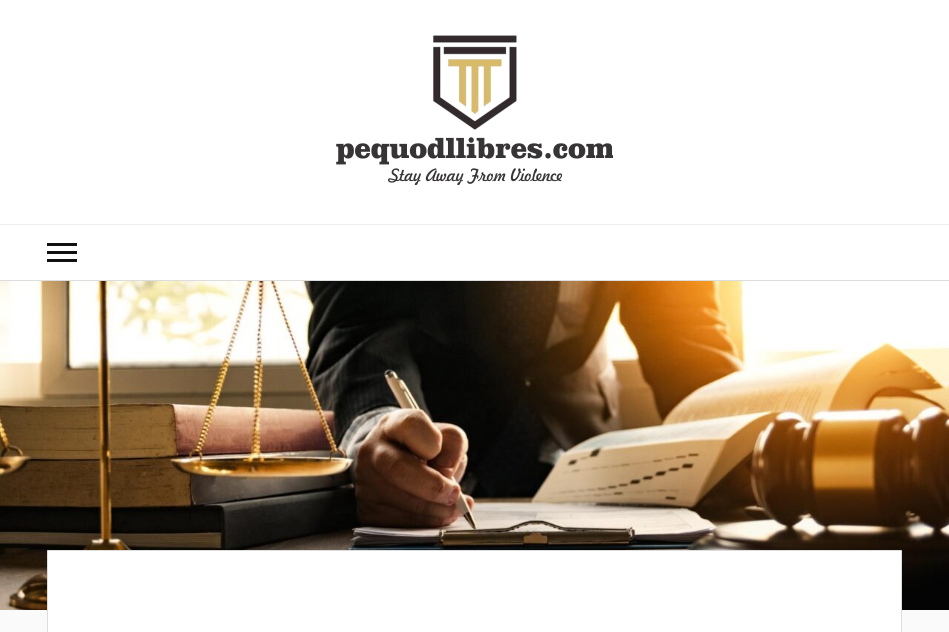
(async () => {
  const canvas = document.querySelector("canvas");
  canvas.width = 949;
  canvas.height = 632;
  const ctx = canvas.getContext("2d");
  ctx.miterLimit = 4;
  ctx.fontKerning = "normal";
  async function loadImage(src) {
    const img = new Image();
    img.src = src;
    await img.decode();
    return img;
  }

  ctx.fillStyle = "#fafafa";
  ctx.fillRect(0, 0, 949, 632);
  ctx.fillStyle = "#ffffff";
  ctx.fillRect(0, 0, 949, 224);
  ctx.drawImage(await loadImage("img/1.png"), 336, 35, 277, 150);
  for (const [x, y, w, h, color] of [
    [0, 225, 949, 55, "#ffffff"],
    [0, 224, 949, 1, "#eeeeee"],
    [47, 243, 30, 3, "#111111"],
    [47, 251, 30, 3, "#111111"],
    [47, 259, 30, 3, "#111111"],
    [0, 280, 949, 1, "#dddddd"],
  ]) {
    ctx.fillStyle = color;
    ctx.fillRect(x, y, w, h);
  }
  ctx.drawImage(await loadImage("img/2.png"), 0, 281, 949, 329);
  ctx.fillStyle = "#ffffff";
  ctx.beginPath();
  ctx.rect(47.5, 550.5, 854, 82);
  ctx.fill();
  ctx.strokeStyle = "#dddddd";
  ctx.stroke();
})();
